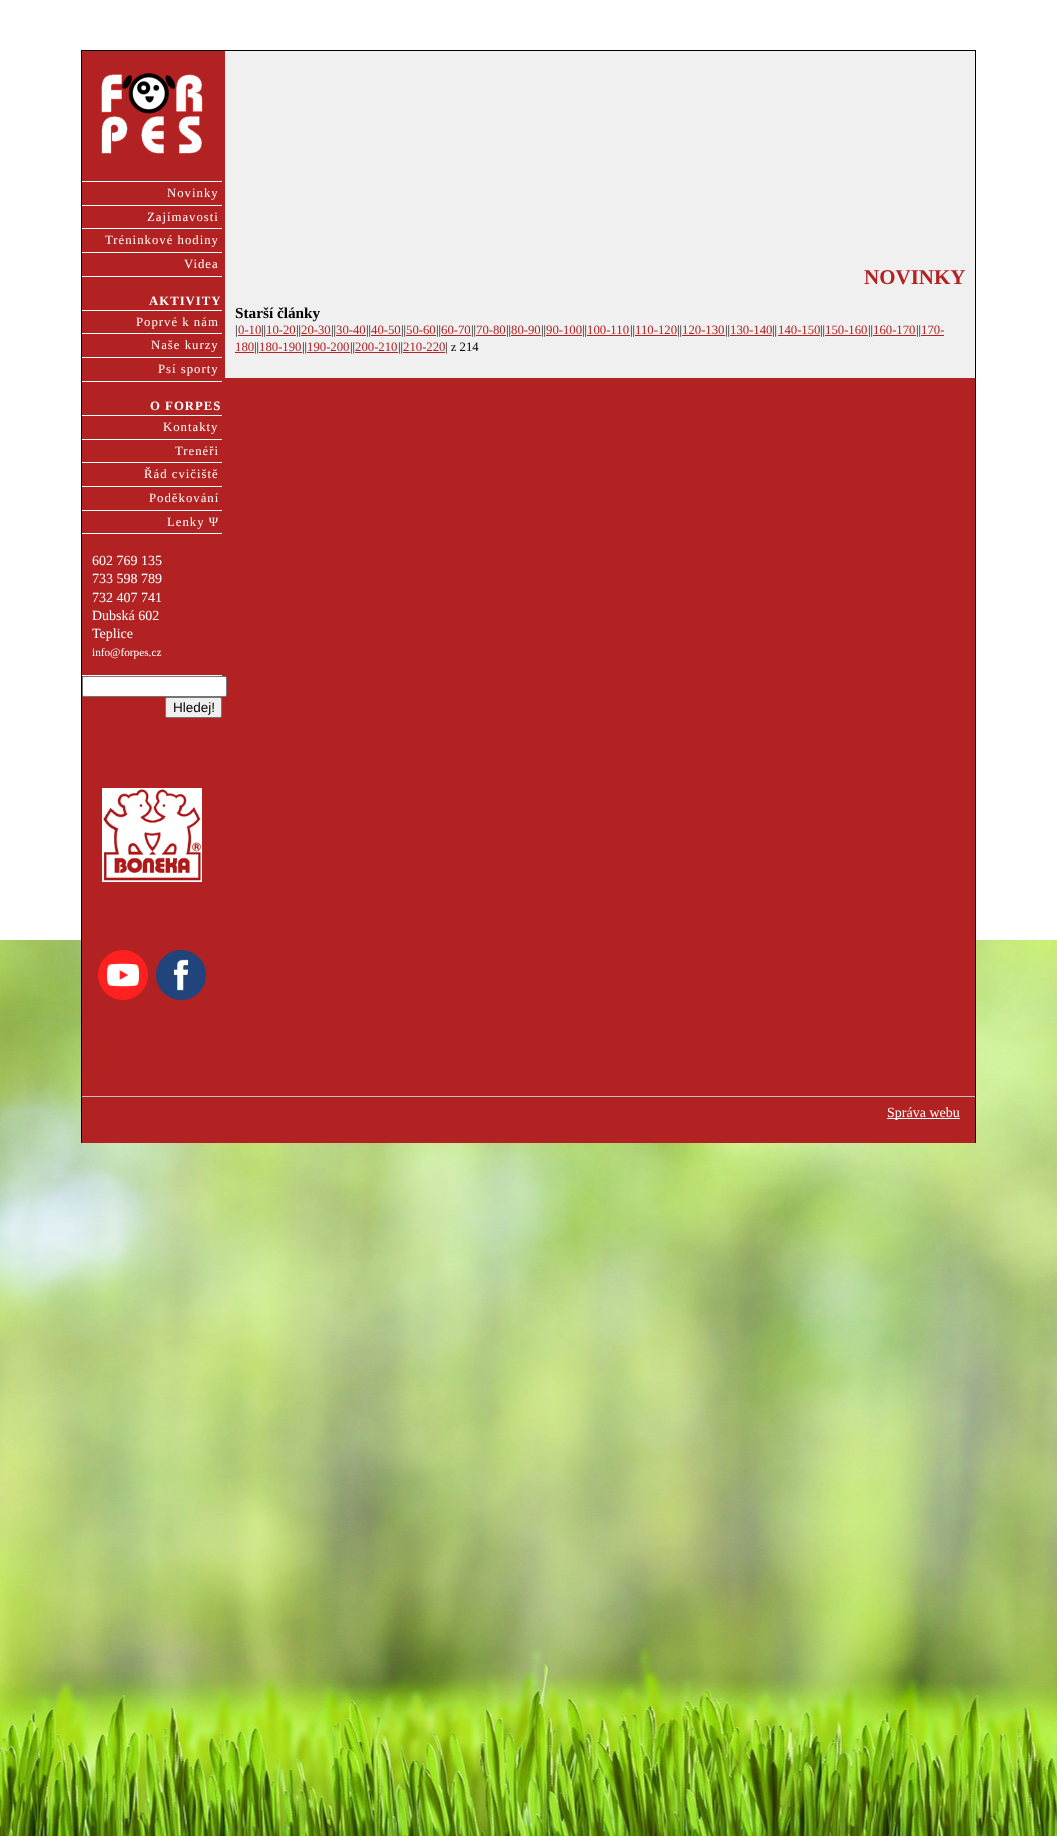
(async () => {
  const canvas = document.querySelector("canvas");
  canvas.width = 1057;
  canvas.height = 1836;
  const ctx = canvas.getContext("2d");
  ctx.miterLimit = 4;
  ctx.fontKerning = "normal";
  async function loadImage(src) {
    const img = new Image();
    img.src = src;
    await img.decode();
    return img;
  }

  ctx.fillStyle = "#ffffff";
  ctx.fillRect(0, 0, 1057, 1836);
  ctx.drawImage(await loadImage("img/1.png"), 0, 940, 1057, 896);
  for (const [x, y, w, h, color] of [
    [82, 51, 893, 1092, "#b22222"],
    [81, 50, 895, 1, "#000000"],
    [975, 50, 1, 1093, "#000000"],
    [81, 50, 1, 1093, "#000000"],
  ]) {
    ctx.fillStyle = color;
    ctx.fillRect(x, y, w, h);
  }
  ctx.drawImage(await loadImage("img/2.png"), 101, 73, 102, 81);
  for (const [x, y, w, h, color] of [
    [82, 181, 140, 1, "#ffffff"],
    [82, 205, 140, 1, "#ffffff"],
    [82, 228, 140, 1, "#ffffff"],
    [82, 252, 140, 1, "#ffffff"],
    [82, 276, 140, 1, "#ffffff"],
    [82, 310, 140, 1, "#ffffff"],
    [82, 333, 140, 1, "#ffffff"],
    [82, 357, 140, 1, "#ffffff"],
    [82, 381, 140, 1, "#ffffff"],
    [82, 415, 140, 1, "#ffffff"],
    [82, 439, 140, 1, "#ffffff"],
    [82, 462, 140, 1, "#ffffff"],
    [82, 486, 140, 1, "#ffffff"],
    [82, 510, 140, 1, "#ffffff"],
    [82, 533, 140, 1, "#ffffff"],
    [82, 675, 140, 1, "#ffffff"],
  ]) {
    ctx.fillStyle = color;
    ctx.fillRect(x, y, w, h);
  }
  ctx.beginPath();
  ctx.roundRect(82.5, 676.5, 144, 20, 1.5);
  ctx.fill();
  ctx.strokeStyle = "#767676";
  ctx.stroke();
  ctx.fillStyle = "#efefef";
  ctx.beginPath();
  ctx.roundRect(165.5, 697.5, 56, 20, 1.5);
  ctx.fill();
  ctx.stroke();
  ctx.drawImage(await loadImage("img/3.png"), 102, 788, 100, 94);
  ctx.drawImage(await loadImage("img/4.png"), 98, 950, 50, 50);
  ctx.drawImage(await loadImage("img/5.png"), 156, 950, 50, 50);
  for (const [x, y, w, h, color] of [
    [225, 51, 750, 327, "#f0f0f0"],
    [238, 335, 23, 1, "#b22222"],
    [266, 335, 30, 1, "#b22222"],
    [301, 335, 30, 1, "#b22222"],
    [336, 335, 30, 1, "#b22222"],
    [371, 335, 30, 1, "#b22222"],
    [406, 335, 30, 1, "#b22222"],
    [441, 335, 30, 1, "#b22222"],
    [476, 335, 30, 1, "#b22222"],
    [511, 335, 30, 1, "#b22222"],
    [546, 335, 36, 1, "#b22222"],
    [587, 335, 43, 1, "#b22222"],
    [635, 335, 42, 1, "#b22222"],
    [682, 335, 43, 1, "#b22222"],
    [730, 335, 42, 1, "#b22222"],
    [778, 335, 42, 1, "#b22222"],
    [825, 335, 43, 1, "#b22222"],
    [873, 335, 43, 1, "#b22222"],
    [921, 335, 23, 1, "#b22222"],
    [235, 352, 19, 1, "#b22222"],
    [259, 352, 43, 1, "#b22222"],
    [307, 352, 43, 1, "#b22222"],
    [355, 352, 43, 1, "#b22222"],
    [403, 352, 42, 1, "#b22222"],
    [82, 1096, 893, 1, "#c0c0c0"],
    [887, 1118, 73, 1, "#ffffff"],
  ]) {
    ctx.fillStyle = color;
    ctx.fillRect(x, y, w, h);
  }
  ctx.letterSpacing = "1px";
  ctx.font = "12.75px Liberation Serif";
  for (const [text, x, y] of [
    ["Novinky", 167, 197],
    ["Zajímavosti", 147, 221],
    ["Tréninkové hodiny", 105, 244],
    ["Videa", 184, 268],
  ]) {
    ctx.fillText(text, x, y);
  }
  ctx.font = "bold 12.75px Liberation Serif";
  ctx.fillText("AKTIVITY", 149, 305);
  ctx.font = "12.75px Liberation Serif";
  for (const [text, x, y] of [
    ["Poprvé k nám", 136, 326],
    ["Naše kurzy", 151, 349],
    ["Psí sporty", 158, 373],
  ]) {
    ctx.fillText(text, x, y);
  }
  ctx.font = "bold 12.75px Liberation Serif";
  ctx.fillText("O FORPES", 150, 410);
  ctx.font = "12.75px Liberation Serif";
  for (const [text, x, y] of [
    ["Kontakty", 163, 431],
    ["Trenéři", 175, 455],
    ["Řád cvičiště", 144, 478],
    ["Poděkování", 149, 502],
    ["Lenky Ψ", 167, 526],
  ]) {
    ctx.fillText(text, x, y);
  }
  ctx.letterSpacing = "0px";
  ctx.font = "14px Liberation Serif";
  for (const [text, x, y] of [
    ["602 769 135", 92, 565],
    ["733 598 789", 92, 583],
    ["732 407 741", 92, 602],
    ["Dubská 602", 92, 620],
    ["Teplice", 92, 638],
  ]) {
    ctx.fillText(text, x, y);
  }
  ctx.font = "11.25px Liberation Serif";
  ctx.fillText("info@forpes.cz", 92, 656);
  ctx.font = "13.5px Liberation Sans";
  ctx.fillStyle = "#000000";
  ctx.fillText("Hledej!", 173, 712);
  ctx.font = "bold 21px Liberation Serif";
  ctx.fillStyle = "#b22222";
  ctx.fillText("NOVINKY", 864, 284);
  ctx.font = "bold 15.25px Liberation Serif";
  ctx.fillStyle = "#000000";
  ctx.fillText("Starší články", 235, 318);
  ctx.font = "12.75px Liberation Serif";
  ctx.fillText("|", 235, 334);
  ctx.fillStyle = "#b22222";
  ctx.fillText("0-10", 238, 334);
  ctx.fillStyle = "#000000";
  ctx.fillText("||", 261, 334);
  ctx.fillStyle = "#b22222";
  ctx.fillText("10-20", 266, 334);
  ctx.fillStyle = "#000000";
  ctx.fillText("||", 296, 334);
  ctx.fillStyle = "#b22222";
  ctx.fillText("20-30", 301, 334);
  ctx.fillStyle = "#000000";
  ctx.fillText("||", 331, 334);
  ctx.fillStyle = "#b22222";
  ctx.fillText("30-40", 336, 334);
  ctx.fillStyle = "#000000";
  ctx.fillText("||", 366, 334);
  ctx.fillStyle = "#b22222";
  ctx.fillText("40-50", 371, 334);
  ctx.fillStyle = "#000000";
  ctx.fillText("||", 401, 334);
  ctx.fillStyle = "#b22222";
  ctx.fillText("50-60", 406, 334);
  ctx.fillStyle = "#000000";
  ctx.fillText("||", 436, 334);
  ctx.fillStyle = "#b22222";
  ctx.fillText("60-70", 441, 334);
  ctx.fillStyle = "#000000";
  ctx.fillText("||", 471, 334);
  ctx.fillStyle = "#b22222";
  ctx.fillText("70-80", 476, 334);
  ctx.fillStyle = "#000000";
  ctx.fillText("||", 506, 334);
  ctx.fillStyle = "#b22222";
  ctx.fillText("80-90", 511, 334);
  ctx.fillStyle = "#000000";
  ctx.fillText("||", 541, 334);
  ctx.fillStyle = "#b22222";
  ctx.fillText("90-100", 546, 334);
  ctx.fillStyle = "#000000";
  ctx.fillText("||", 582, 334);
  ctx.fillStyle = "#b22222";
  ctx.fillText("100-110", 587, 334);
  ctx.fillStyle = "#000000";
  ctx.fillText("||", 630, 334);
  ctx.fillStyle = "#b22222";
  ctx.fillText("110-120", 635, 334);
  ctx.fillStyle = "#000000";
  ctx.fillText("||", 677, 334);
  ctx.fillStyle = "#b22222";
  ctx.fillText("120-130", 682, 334);
  ctx.fillStyle = "#000000";
  ctx.fillText("||", 725, 334);
  ctx.fillStyle = "#b22222";
  ctx.fillText("130-140", 730, 334);
  ctx.fillStyle = "#000000";
  ctx.fillText("||", 772, 334);
  ctx.fillStyle = "#b22222";
  ctx.fillText("140-150", 778, 334);
  ctx.fillStyle = "#000000";
  ctx.fillText("||", 820, 334);
  ctx.fillStyle = "#b22222";
  ctx.fillText("150-160", 825, 334);
  ctx.fillStyle = "#000000";
  ctx.fillText("||", 868, 334);
  ctx.fillStyle = "#b22222";
  ctx.fillText("160-170", 873, 334);
  ctx.fillStyle = "#000000";
  ctx.fillText("||", 916, 334);
  ctx.fillStyle = "#b22222";
  ctx.fillText("170-", 921, 334);
  ctx.fillText("180", 235, 351);
  ctx.fillStyle = "#000000";
  ctx.fillText("||", 254, 351);
  ctx.fillStyle = "#b22222";
  ctx.fillText("180-190", 259, 351);
  ctx.fillStyle = "#000000";
  ctx.fillText("||", 302, 351);
  ctx.fillStyle = "#b22222";
  ctx.fillText("190-200", 307, 351);
  ctx.fillStyle = "#000000";
  ctx.fillText("||", 350, 351);
  ctx.fillStyle = "#b22222";
  ctx.fillText("200-210", 355, 351);
  ctx.fillStyle = "#000000";
  ctx.fillText("||", 398, 351);
  ctx.fillStyle = "#b22222";
  ctx.fillText("210-220", 403, 351);
  ctx.fillStyle = "#000000";
  ctx.fillText("| z 214", 445, 351);
  ctx.font = "14px Liberation Serif";
  ctx.fillStyle = "#ffffff";
  ctx.fillText("Správa webu", 887, 1117);
})();
